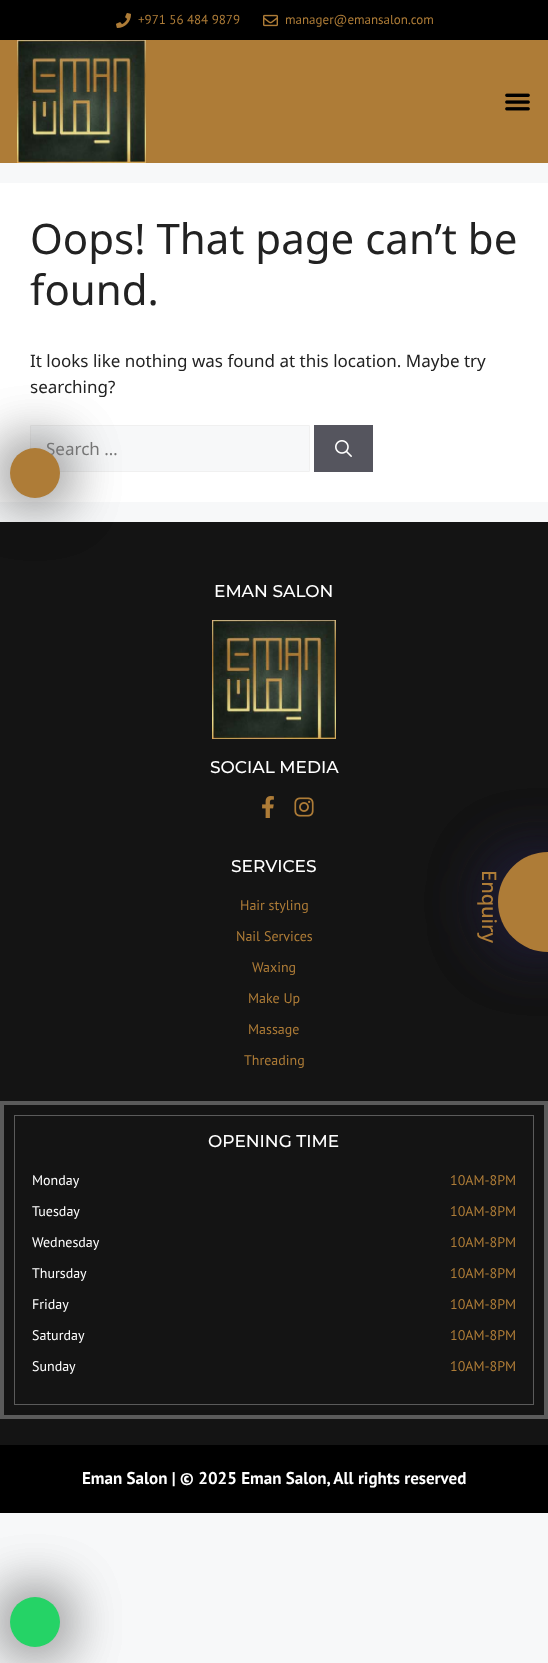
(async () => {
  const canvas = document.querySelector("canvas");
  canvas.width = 548;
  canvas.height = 1663;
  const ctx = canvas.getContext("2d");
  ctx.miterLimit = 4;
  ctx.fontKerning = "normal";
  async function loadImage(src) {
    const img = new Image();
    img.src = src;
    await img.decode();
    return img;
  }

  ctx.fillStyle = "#f7f8f9";
  ctx.fillRect(0, 0, 548, 1663);
  ctx.fillStyle = "#000000";
  ctx.fillRect(0, 0, 548, 40);
  ctx.drawImage(await loadImage("img/1.png"), 116, 13, 15, 15);
  ctx.drawImage(await loadImage("img/2.png"), 263, 14, 15, 13);
  ctx.fillStyle = "#ae7c37";
  ctx.fillRect(0, 40, 548, 123);
  ctx.drawImage(await loadImage("img/3.png"), 17, 40, 129, 123);
  ctx.drawImage(await loadImage("img/4.png"), 505, 93, 25, 18);
  ctx.fillStyle = "#ffffff";
  ctx.fillRect(0, 183, 548, 319);
  ctx.fillStyle = "#f7f8f9";
  ctx.beginPath();
  ctx.rect(30.5, 425.5, 279, 46);
  ctx.fill();
  ctx.strokeStyle = "#f0f0f0";
  ctx.stroke();
  ctx.fillStyle = "#55555e";
  ctx.fillRect(314, 425, 59, 47);
  ctx.drawImage(await loadImage("img/5.png"), 335, 440, 17, 17);
  ctx.fillStyle = "#141414";
  ctx.fillRect(0, 522, 548, 923);
  ctx.fillStyle = "rgba(0, 0, 0, 0.5)";
  ctx.filter = "blur(30px)";
  ctx.beginPath();
  ctx.roundRect(9, 447, 52, 52, 26);
  ctx.fill();
  ctx.filter = "none";
  ctx.filter = "blur(30px)";
  ctx.beginPath();
  ctx.roundRect(9, 447, 52, 52, 26);
  ctx.fill();
  ctx.filter = "none";
  ctx.drawImage(await loadImage("img/6.png"), 212, 620, 124, 119);
  ctx.drawImage(await loadImage("img/7.png"), 262, 796, 12, 22);
  ctx.drawImage(await loadImage("img/8.png"), 294, 797, 20, 20);
  ctx.strokeStyle = "#5b5b5b";
  ctx.lineWidth = 4;
  ctx.strokeRect(2, 1103, 544, 314);
  ctx.lineWidth = 1;
  ctx.strokeRect(14.5, 1115.5, 519, 289);
  ctx.fillStyle = "#000000";
  ctx.fillRect(0, 1445, 548, 68);
  ctx.fillStyle = "rgba(36, 33, 74, 0.49)";
  ctx.filter = "blur(30px)";
  ctx.beginPath();
  ctx.roundRect(488, 852, 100, 100, 50);
  ctx.fill();
  ctx.filter = "none";
  ctx.filter = "blur(30px)";
  ctx.beginPath();
  ctx.roundRect(488, 852, 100, 100, 50);
  ctx.fill();
  ctx.filter = "none";
  ctx.fillStyle = "#ae7c37";
  ctx.beginPath();
  ctx.arc(548, 902, 50, 0, Math.PI * 2);
  ctx.fill();
  ctx.fillStyle = "rgba(0, 0, 0, 0.5)";
  ctx.filter = "blur(30px)";
  ctx.beginPath();
  ctx.roundRect(9, 1596, 52, 52, 26);
  ctx.fill();
  ctx.filter = "none";
  ctx.filter = "blur(30px)";
  ctx.beginPath();
  ctx.roundRect(9, 1596, 52, 52, 26);
  ctx.fill();
  ctx.filter = "none";
  ctx.fillStyle = "#25d366";
  ctx.beginPath();
  ctx.arc(35, 1622, 25, 0, Math.PI * 2);
  ctx.fill();
  ctx.font = "13px PT Sans";
  ctx.fillStyle = "#ae7c37";
  ctx.fillText("+971 56 484 9879", 138, 24);
  ctx.fillText("manager@emansalon.com", 285, 24);
  ctx.font = "42px Noto Sans";
  ctx.fillStyle = "#222222";
  ctx.fillText("Oops! That page can’t be", 30, 254);
  ctx.fillText("found.", 30, 305);
  ctx.font = "17px Noto Sans";
  ctx.fillText("It looks like nothing was found at this location. Maybe try", 30, 367);
  ctx.fillText("searching?", 30, 393);
  ctx.fillStyle = "#757575";
  ctx.fillText("Search …", 46, 455);
  ctx.fillStyle = "#ae7c37";
  ctx.beginPath();
  ctx.arc(35, 473, 25, 0, Math.PI * 2);
  ctx.fill();
  ctx.font = "500 17px Montserrat";
  ctx.fillStyle = "#ffffff";
  for (const [text, x, y] of [
    ["EMAN SALON", 214, 597],
    ["SOCIAL MEDIA", 210, 773],
    ["SERVICES", 231, 872],
  ]) {
    ctx.fillText(text, x, y);
  }
  ctx.font = "14px PT Sans";
  ctx.fillStyle = "#ae7c37";
  for (const [text, x, y] of [
    ["Hair styling", 240, 910],
    ["Nail Services", 236, 941],
    ["Waxing", 252, 972],
    ["Make Up", 248, 1003],
    ["Massage", 248, 1034],
    ["Threading", 244, 1065],
  ]) {
    ctx.fillText(text, x, y);
  }
  ctx.font = "500 17px Montserrat";
  ctx.fillStyle = "#ffffff";
  ctx.fillText("OPENING TIME", 208, 1147);
  ctx.font = "14px PT Sans";
  ctx.fillText("Monday", 32, 1185);
  ctx.fillStyle = "#ae7c37";
  ctx.fillText("10AM-8PM", 450, 1185);
  ctx.fillStyle = "#ffffff";
  ctx.fillText("Tuesday", 32, 1216);
  ctx.fillStyle = "#ae7c37";
  ctx.fillText("10AM-8PM", 450, 1216);
  ctx.fillStyle = "#ffffff";
  ctx.fillText("Wednesday", 32, 1247);
  ctx.fillStyle = "#ae7c37";
  ctx.fillText("10AM-8PM", 450, 1247);
  ctx.fillStyle = "#ffffff";
  ctx.fillText("Thursday", 32, 1278);
  ctx.fillStyle = "#ae7c37";
  ctx.fillText("10AM-8PM", 450, 1278);
  ctx.fillStyle = "#ffffff";
  ctx.fillText("Friday", 32, 1309);
  ctx.fillStyle = "#ae7c37";
  ctx.fillText("10AM-8PM", 450, 1309);
  ctx.fillStyle = "#ffffff";
  ctx.fillText("Saturday", 32, 1340);
  ctx.fillStyle = "#ae7c37";
  ctx.fillText("10AM-8PM", 450, 1340);
  ctx.fillStyle = "#ffffff";
  ctx.fillText("Sunday", 32, 1371);
  ctx.fillStyle = "#ae7c37";
  ctx.fillText("10AM-8PM", 450, 1371);
  ctx.font = "bold 17px PT Sans";
  ctx.fillStyle = "#ffffff";
  ctx.fillText("Eman Salon | © 2025 Eman Salon, All rights reserved", 82, 1484);
  ctx.font = "500 20px Noto Sans";
  ctx.fillStyle = "#ae7c37";
  ctx.save();
  ctx.translate(482, 870);
  ctx.rotate(90 * Math.PI / 180);
  ctx.fillText("Enquiry", 0, 0);
  ctx.restore();
})();
